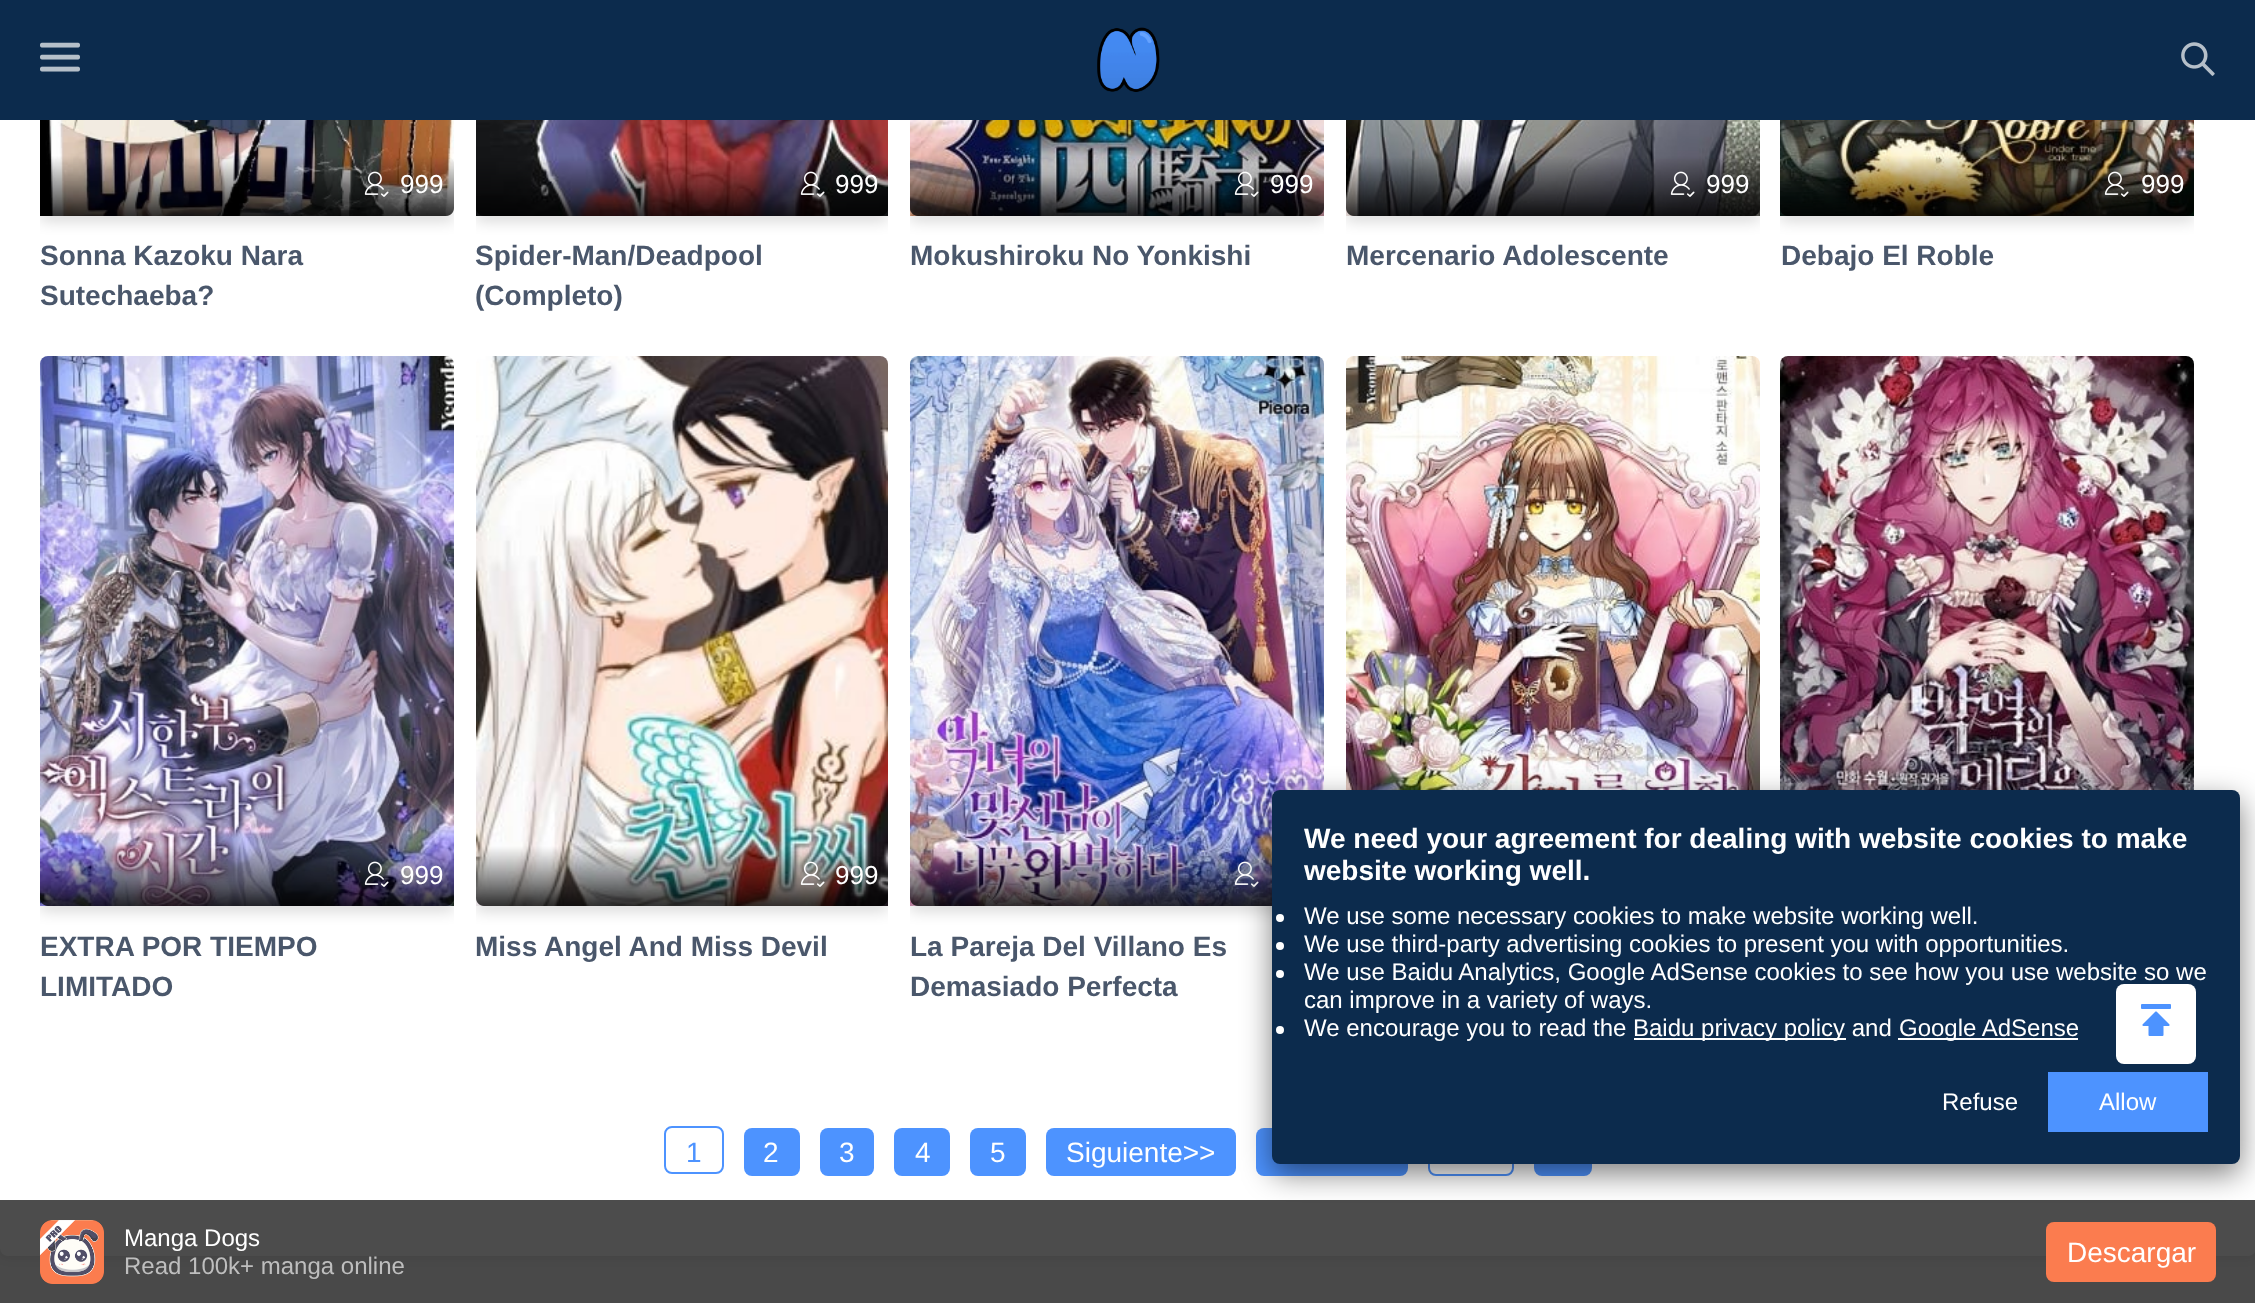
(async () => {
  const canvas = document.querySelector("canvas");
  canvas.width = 2255;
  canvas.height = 1303;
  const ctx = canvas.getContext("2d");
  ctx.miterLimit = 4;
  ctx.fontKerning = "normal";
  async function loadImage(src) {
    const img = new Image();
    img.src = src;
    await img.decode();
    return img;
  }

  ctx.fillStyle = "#f3f3f3";
  ctx.fillRect(0, 0, 2255, 1303);
  ctx.fillStyle = "rgba(0, 0, 0, 0.1)";
  ctx.filter = "blur(6px)";
  ctx.beginPath();
  ctx.roundRect(0, -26, 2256, 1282, 8);
  ctx.fill();
  ctx.filter = "none";
  ctx.fillStyle = "#ffffff";
  ctx.beginPath();
  ctx.roundRect(0, -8, 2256, 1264, 8);
  ctx.fill();
  ctx.fillStyle = "#0c2b4d";
  ctx.fillRect(0, 0, 2255, 120);
  ctx.drawImage(await loadImage("img/1.png"), 40, 42, 40, 30);
  ctx.drawImage(await loadImage("img/2.png"), 1097, 27, 63, 65);
  ctx.drawImage(await loadImage("img/3.png"), 2181, 42, 34, 34);
  ctx.drawImage(await loadImage("img/4.png"), 40, 120, 414, 96);
  ctx.drawImage(await loadImage("img/5.png"), 364, 171, 25, 26);
  ctx.save();
  ctx.beginPath();
  ctx.roundRect(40, -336, 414, 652, 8);
  ctx.clip();
  ctx.fillStyle = "#000000";
  ctx.filter = "blur(8px)";
  ctx.beginPath();
  ctx.rect(40, 214, 414, 2);
  ctx.fill();
  ctx.filter = "none";
  ctx.restore();
  ctx.drawImage(await loadImage("img/6.png"), 476, 120, 412, 96);
  ctx.drawImage(await loadImage("img/7.png"), 800, 171, 25, 26);
  ctx.save();
  ctx.beginPath();
  ctx.roundRect(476, -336, 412, 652, 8);
  ctx.clip();
  ctx.fillStyle = "#000000";
  ctx.filter = "blur(8px)";
  ctx.beginPath();
  ctx.rect(476, 214, 412, 2);
  ctx.fill();
  ctx.filter = "none";
  ctx.restore();
  ctx.drawImage(await loadImage("img/8.png"), 910, 120, 414, 96);
  ctx.drawImage(await loadImage("img/9.png"), 1234, 171, 25, 26);
  ctx.save();
  ctx.beginPath();
  ctx.roundRect(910, -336, 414, 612, 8);
  ctx.clip();
  ctx.fillStyle = "#000000";
  ctx.filter = "blur(8px)";
  ctx.beginPath();
  ctx.rect(910, 214, 414, 2);
  ctx.fill();
  ctx.filter = "none";
  ctx.restore();
  ctx.drawImage(await loadImage("img/10.png"), 1346, 120, 414, 96);
  ctx.drawImage(await loadImage("img/11.png"), 1670, 171, 25, 26);
  ctx.save();
  ctx.beginPath();
  ctx.roundRect(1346, -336, 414, 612, 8);
  ctx.clip();
  ctx.fillStyle = "#000000";
  ctx.filter = "blur(8px)";
  ctx.beginPath();
  ctx.rect(1346, 214, 414, 2);
  ctx.fill();
  ctx.filter = "none";
  ctx.restore();
  ctx.drawImage(await loadImage("img/12.png"), 1780, 120, 414, 96);
  ctx.drawImage(await loadImage("img/13.png"), 2104, 171, 25, 26);
  ctx.save();
  ctx.beginPath();
  ctx.roundRect(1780, -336, 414, 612, 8);
  ctx.clip();
  ctx.fillStyle = "#000000";
  ctx.filter = "blur(8px)";
  ctx.beginPath();
  ctx.rect(1780, 214, 414, 2);
  ctx.fill();
  ctx.filter = "none";
  ctx.restore();
  ctx.drawImage(await loadImage("img/14.png"), 1346, 356, 414, 434);
  ctx.drawImage(await loadImage("img/15.png"), 1780, 356, 414, 434);
  ctx.drawImage(await loadImage("img/16.png"), 40, 356, 414, 550);
  ctx.drawImage(await loadImage("img/17.png"), 364, 861, 25, 26);
  ctx.save();
  ctx.beginPath();
  ctx.roundRect(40, 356, 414, 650, 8);
  ctx.clip();
  ctx.fillStyle = "#000000";
  ctx.filter = "blur(8px)";
  ctx.beginPath();
  ctx.rect(40, 904, 414, 2);
  ctx.fill();
  ctx.filter = "none";
  ctx.restore();
  ctx.drawImage(await loadImage("img/18.png"), 476, 356, 412, 550);
  ctx.drawImage(await loadImage("img/19.png"), 800, 861, 25, 26);
  ctx.save();
  ctx.beginPath();
  ctx.roundRect(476, 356, 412, 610, 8);
  ctx.clip();
  ctx.fillStyle = "#000000";
  ctx.filter = "blur(8px)";
  ctx.beginPath();
  ctx.rect(476, 904, 412, 2);
  ctx.fill();
  ctx.filter = "none";
  ctx.restore();
  ctx.drawImage(await loadImage("img/20.png"), 910, 356, 414, 550);
  ctx.drawImage(await loadImage("img/21.png"), 1234, 861, 25, 26);
  ctx.save();
  ctx.beginPath();
  ctx.roundRect(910, 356, 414, 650, 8);
  ctx.clip();
  ctx.fillStyle = "#000000";
  ctx.filter = "blur(8px)";
  ctx.beginPath();
  ctx.rect(910, 904, 414, 2);
  ctx.fill();
  ctx.filter = "none";
  ctx.restore();
  ctx.beginPath();
  ctx.roundRect(665, 1127, 58, 46, 7);
  ctx.strokeStyle = "#4d93ff";
  ctx.lineWidth = 2;
  ctx.stroke();
  ctx.fillStyle = "#4d93ff";
  ctx.beginPath();
  ctx.roundRect(744, 1128, 56, 48, 8);
  ctx.fill();
  ctx.beginPath();
  ctx.roundRect(820, 1128, 54, 48, 8);
  ctx.fill();
  ctx.beginPath();
  ctx.roundRect(894, 1128, 56, 48, 8);
  ctx.fill();
  ctx.beginPath();
  ctx.roundRect(970, 1128, 56, 48, 8);
  ctx.fill();
  ctx.beginPath();
  ctx.roundRect(1046, 1128, 190, 48, 8);
  ctx.fill();
  ctx.beginPath();
  ctx.roundRect(1256, 1128, 152, 48, 8);
  ctx.fill();
  ctx.beginPath();
  ctx.roundRect(1429, 1129, 84, 46, 7);
  ctx.stroke();
  ctx.beginPath();
  ctx.roundRect(1534, 1128, 58, 48, 8);
  ctx.fill();
  ctx.fillStyle = "rgba(0, 0, 0, 0.5)";
  ctx.filter = "blur(15px)";
  ctx.beginPath();
  ctx.roundRect(1272, 800, 968, 374, 8);
  ctx.fill();
  ctx.filter = "none";
  ctx.fillStyle = "#0c2b4d";
  ctx.beginPath();
  ctx.roundRect(1272, 790, 968, 374, 8);
  ctx.fill();
  ctx.fillStyle = "#ffffff";
  ctx.beginPath();
  ctx.arc(1280, 918, 4, 0, Math.PI * 2);
  ctx.fill();
  ctx.beginPath();
  ctx.arc(1280, 946, 4, 0, Math.PI * 2);
  ctx.fill();
  ctx.beginPath();
  ctx.arc(1280, 974, 4, 0, Math.PI * 2);
  ctx.fill();
  ctx.beginPath();
  ctx.arc(1280, 1030, 4, 0, Math.PI * 2);
  ctx.fill();
  for (const [x, y, w, h, color] of [
    [1634, 1038, 212, 2, "#ffffff"],
    [1898, 1038, 180, 2, "#ffffff"],
    [2048, 1072, 160, 60, "#4d93ff"],
  ]) {
    ctx.fillStyle = color;
    ctx.fillRect(x, y, w, h);
  }
  ctx.fillStyle = "#ffffff";
  ctx.beginPath();
  ctx.roundRect(2116, 984, 80, 80, 8);
  ctx.fill();
  ctx.drawImage(await loadImage("img/22.png"), 2141, 1004, 30, 32);
  ctx.fillStyle = "rgba(0, 0, 0, 0.7)";
  ctx.fillRect(0, 1200, 2255, 103);
  ctx.drawImage(await loadImage("img/23.png"), 40, 1220, 64, 64);
  ctx.fillStyle = "#fb7c4f";
  ctx.beginPath();
  ctx.roundRect(2046, 1222, 170, 60, 8);
  ctx.fill();
  ctx.font = "26px Liberation Sans";
  ctx.fillStyle = "#ffffff";
  ctx.fillText("999", 400, 193);
  ctx.font = "bold 28px Liberation Sans";
  ctx.fillStyle = "#4a576b";
  ctx.fillText("Sonna Kazoku Nara", 40, 265);
  ctx.fillText("Sutechaeba?", 40, 305);
  ctx.font = "26px Liberation Sans";
  ctx.fillStyle = "#ffffff";
  ctx.fillText("999", 835, 193);
  ctx.font = "bold 28px Liberation Sans";
  ctx.fillStyle = "#4a576b";
  ctx.fillText("Spider-Man/Deadpool", 475, 265);
  ctx.fillText("(Completo)", 475, 305);
  ctx.font = "26px Liberation Sans";
  ctx.fillStyle = "#ffffff";
  ctx.fillText("999", 1270, 193);
  ctx.font = "bold 28px Liberation Sans";
  ctx.fillStyle = "#4a576b";
  ctx.fillText("Mokushiroku No Yonkishi", 910, 265);
  ctx.font = "26px Liberation Sans";
  ctx.fillStyle = "#ffffff";
  ctx.fillText("999", 1706, 193);
  ctx.font = "bold 28px Liberation Sans";
  ctx.fillStyle = "#4a576b";
  ctx.fillText("Mercenario Adolescente", 1346, 265);
  ctx.font = "26px Liberation Sans";
  ctx.fillStyle = "#ffffff";
  ctx.fillText("999", 2141, 193);
  ctx.font = "bold 28px Liberation Sans";
  ctx.fillStyle = "#4a576b";
  ctx.fillText("Debajo El Roble", 1781, 265);
  ctx.font = "26px Liberation Sans";
  ctx.fillStyle = "#ffffff";
  ctx.fillText("999", 400, 884);
  ctx.font = "bold 28px Liberation Sans";
  ctx.fillStyle = "#4a576b";
  ctx.fillText("EXTRA POR TIEMPO", 40, 956);
  ctx.fillText("LIMITADO", 40, 996);
  ctx.font = "26px Liberation Sans";
  ctx.fillStyle = "#ffffff";
  ctx.fillText("999", 835, 884);
  ctx.font = "bold 28px Liberation Sans";
  ctx.fillStyle = "#4a576b";
  for (const [text, x, y] of [
    ["Miss Angel And Miss Devil", 475, 956],
    ["La Pareja Del Villano Es", 910, 956],
    ["Demasiado Perfecta", 910, 996],
  ]) {
    ctx.fillText(text, x, y);
  }
  ctx.font = "28px Liberation Sans";
  ctx.fillStyle = "#4d93ff";
  ctx.fillText("1", 686, 1162);
  ctx.fillStyle = "#ffffff";
  for (const [text, x, y] of [
    ["2", 763, 1162],
    ["3", 839, 1162],
    ["4", 915, 1162],
    ["5", 990, 1162],
    ["Siguiente>>", 1066, 1162],
  ]) {
    ctx.fillText(text, x, y);
  }
  ctx.font = "bold 28px Liberation Sans";
  ctx.fillText("We need your agreement for dealing with website cookies to make", 1304, 848);
  ctx.fillText("website working well.", 1304, 880);
  ctx.font = "24px Liberation Sans";
  for (const [text, x, y] of [
    ["We use some necessary cookies to make website working well.", 1304, 924],
    ["We use third-party advertising cookies to present you with opportunities.", 1304, 952],
    ["We use Baidu Analytics, Google AdSense cookies to see how you use website so we", 1304, 980],
    ["can improve in a variety of ways.", 1304, 1008],
    ["We encourage you to read the", 1304, 1036],
    ["Baidu privacy policy and", 1633, 1036],
    ["Google AdSense", 1899, 1036],
    ["Refuse", 1942, 1110],
    ["Allow", 2099, 1110],
    ["Manga Dogs", 124, 1246],
  ]) {
    ctx.fillText(text, x, y);
  }
  ctx.fillStyle = "#bebebe";
  ctx.fillText("Read 100k+ manga online", 124, 1274);
  ctx.font = "28px Liberation Sans";
  ctx.fillStyle = "#ffffff";
  ctx.fillText("Descargar", 2067, 1262);
})();
